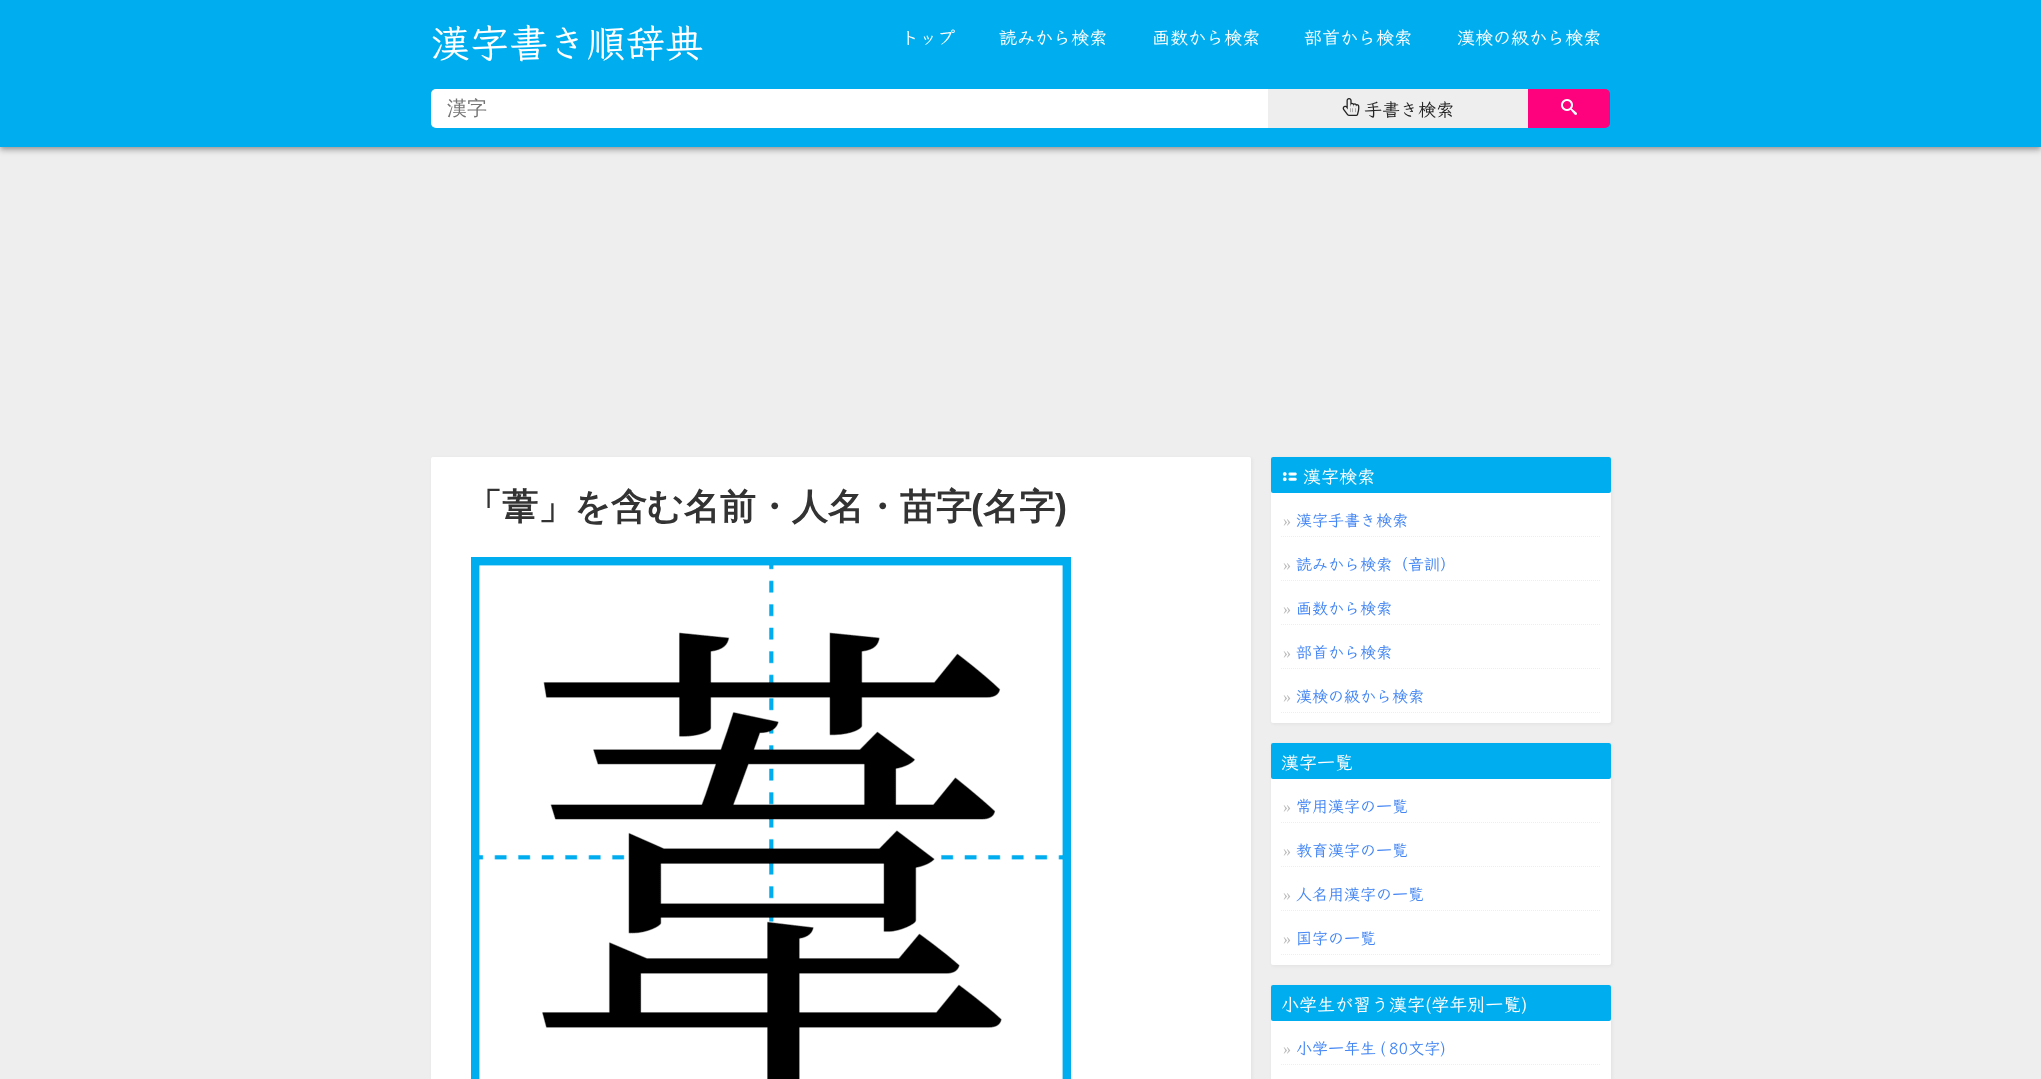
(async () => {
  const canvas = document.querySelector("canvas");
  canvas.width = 2041;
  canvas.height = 1079;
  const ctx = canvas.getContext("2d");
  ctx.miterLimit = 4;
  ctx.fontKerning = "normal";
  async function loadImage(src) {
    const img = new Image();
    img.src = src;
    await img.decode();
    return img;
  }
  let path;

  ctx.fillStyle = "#eeeeee";
  ctx.fillRect(0, 0, 2041, 1079);
  ctx.fillStyle = "rgba(0, 0, 0, 0.12)";
  ctx.filter = "blur(5px)";
  ctx.beginPath();
  ctx.rect(0, 1, 2041, 147);
  ctx.fill();
  ctx.filter = "none";
  ctx.fillStyle = "rgba(0, 0, 0, 0.14)";
  ctx.filter = "blur(2.5px)";
  ctx.beginPath();
  ctx.rect(0, 4, 2041, 147);
  ctx.fill();
  ctx.filter = "none";
  ctx.fillStyle = "rgba(0, 0, 0, 0.2)";
  ctx.filter = "blur(2px)";
  ctx.beginPath();
  ctx.rect(1, 3, 2039, 145);
  ctx.fill();
  ctx.filter = "none";
  ctx.fillStyle = "#00aeef";
  ctx.fillRect(0, 0, 2041, 147);
  ctx.fillStyle = "#ffffff";
  ctx.beginPath();
  ctx.roundRect(431, 89, 837, 39, [5, 0, 0, 5]);
  ctx.fill();
  ctx.fillStyle = "#eeeeee";
  ctx.fillRect(1268, 89, 260, 39);
  ctx.drawImage(await loadImage("img/1.png"), 1342, 98, 18, 18);
  ctx.fillStyle = "#fd027c";
  ctx.beginPath();
  ctx.roundRect(1528, 89, 82, 39, [0, 5, 5, 0]);
  ctx.fill();
  ctx.drawImage(await loadImage("img/2.png"), 1561, 99, 16, 16);
  ctx.fillStyle = "#e2e1e1";
  ctx.filter = "blur(1.5px)";
  ctx.beginPath();
  ctx.roundRect(432, 458, 820, 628, 2);
  ctx.fill();
  ctx.filter = "none";
  ctx.fillStyle = "#ffffff";
  ctx.beginPath();
  ctx.roundRect(431, 457, 820, 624, 2);
  ctx.fill();
  ctx.drawImage(await loadImage("img/3.png"), 471, 557, 600, 522);
  ctx.fillStyle = "#e2e1e1";
  ctx.filter = "blur(1.5px)";
  ctx.beginPath();
  ctx.roundRect(1272, 458, 340, 266, 2);
  ctx.fill();
  ctx.filter = "none";
  ctx.fillStyle = "#ffffff";
  ctx.beginPath();
  ctx.roundRect(1271, 457, 340, 266, 2);
  ctx.fill();
  ctx.fillStyle = "#00aeef";
  ctx.beginPath();
  ctx.roundRect(1271, 457, 340, 36, 2);
  ctx.fill();
  ctx.drawImage(await loadImage("img/4.png"), 1282, 472, 15, 10);
  path = new Path2D("M1281 536.5H1601");
  ctx.strokeStyle = "#eeeeee";
  ctx.setLineDash([1, 1]);
  ctx.stroke(path);
  path = new Path2D("M1281 580.5H1601");
  ctx.stroke(path);
  path = new Path2D("M1281 624.5H1601");
  ctx.stroke(path);
  path = new Path2D("M1281 668.5H1601");
  ctx.stroke(path);
  path = new Path2D("M1281 712.5H1601");
  ctx.stroke(path);
  ctx.fillStyle = "#e2e1e1";
  ctx.filter = "blur(1.5px)";
  ctx.beginPath();
  ctx.roundRect(1272, 744, 340, 222, 2);
  ctx.fill();
  ctx.filter = "none";
  ctx.fillStyle = "#ffffff";
  ctx.beginPath();
  ctx.roundRect(1271, 743, 340, 222, 2);
  ctx.fill();
  ctx.fillStyle = "#00aeef";
  ctx.beginPath();
  ctx.roundRect(1271, 743, 340, 36, 2);
  ctx.fill();
  path = new Path2D("M1281 822.5H1601");
  ctx.stroke(path);
  path = new Path2D("M1281 866.5H1601");
  ctx.stroke(path);
  path = new Path2D("M1281 910.5H1601");
  ctx.stroke(path);
  path = new Path2D("M1281 954.5H1601");
  ctx.stroke(path);
  ctx.fillStyle = "#e2e1e1";
  ctx.filter = "blur(1.5px)";
  ctx.beginPath();
  ctx.roundRect(1272, 986, 340, 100, 2);
  ctx.fill();
  ctx.filter = "none";
  ctx.fillStyle = "#ffffff";
  ctx.beginPath();
  ctx.roundRect(1271, 985, 340, 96, 2);
  ctx.fill();
  ctx.fillStyle = "#00aeef";
  ctx.beginPath();
  ctx.roundRect(1271, 985, 340, 36, 2);
  ctx.fill();
  path = new Path2D("M1281 1064.5H1601");
  ctx.stroke(path);
  ctx.font = "600 39px Klee One";
  ctx.fillStyle = "#ffffff";
  ctx.fillText("漢字書き順辞典", 431, 57);
  ctx.font = "600 18px Klee One";
  for (const [text, x, y] of [
    ["トップ", 901, 44],
    ["読みから検索", 999, 44],
    ["画数から検索", 1152, 44],
    ["部首から検索", 1304, 44],
    ["漢検の級から検索", 1457, 44],
  ]) {
    ctx.fillText(text, x, y);
  }
  ctx.font = "500 20px WenQuanYi Zen Hei";
  ctx.fillStyle = "#757575";
  ctx.fillText("漢字", 447, 115);
  ctx.font = "600 18px Klee One";
  ctx.fillStyle = "#222222";
  ctx.fillText("手書き検索", 1364, 116);
  ctx.font = "bold 36px WenQuanYi Zen Hei";
  ctx.fillStyle = "#333333";
  ctx.fillText("「葦」を含む名前・人名・苗字", 466, 519);
  ctx.font = "bold 36px Liberation Sans";
  ctx.fillText("(", 971, 519);
  ctx.font = "bold 36px WenQuanYi Zen Hei";
  ctx.fillText("名字", 983, 519);
  ctx.font = "bold 36px Liberation Sans";
  ctx.fillText(")", 1055, 519);
  ctx.font = "600 18px Klee One";
  ctx.fillStyle = "#ffffff";
  ctx.fillText("漢字検索", 1303, 483);
  ctx.font = "16px Liberation Serif";
  ctx.fillStyle = "#bbbbbb";
  ctx.fillText("»", 1283, 526);
  ctx.font = "600 16px Klee One";
  ctx.fillStyle = "#4285f4";
  ctx.fillText("漢字手書き検索", 1296, 526);
  ctx.font = "16px Liberation Serif";
  ctx.fillStyle = "#bbbbbb";
  ctx.fillText("»", 1283, 570);
  ctx.font = "600 16px Klee One";
  ctx.fillStyle = "#4285f4";
  ctx.fillText("読みから検索（音訓）", 1296, 570);
  ctx.font = "16px Liberation Serif";
  ctx.fillStyle = "#bbbbbb";
  ctx.fillText("»", 1283, 614);
  ctx.font = "600 16px Klee One";
  ctx.fillStyle = "#4285f4";
  ctx.fillText("画数から検索", 1296, 614);
  ctx.font = "16px Liberation Serif";
  ctx.fillStyle = "#bbbbbb";
  ctx.fillText("»", 1283, 658);
  ctx.font = "600 16px Klee One";
  ctx.fillStyle = "#4285f4";
  ctx.fillText("部首から検索", 1296, 658);
  ctx.font = "16px Liberation Serif";
  ctx.fillStyle = "#bbbbbb";
  ctx.fillText("»", 1283, 702);
  ctx.font = "600 16px Klee One";
  ctx.fillStyle = "#4285f4";
  ctx.fillText("漢検の級から検索", 1296, 702);
  ctx.font = "600 18px Klee One";
  ctx.fillStyle = "#ffffff";
  ctx.fillText("漢字一覧", 1281, 769);
  ctx.font = "16px Liberation Serif";
  ctx.fillStyle = "#bbbbbb";
  ctx.fillText("»", 1283, 812);
  ctx.font = "600 16px Klee One";
  ctx.fillStyle = "#4285f4";
  ctx.fillText("常用漢字の一覧", 1296, 812);
  ctx.font = "16px Liberation Serif";
  ctx.fillStyle = "#bbbbbb";
  ctx.fillText("»", 1283, 856);
  ctx.font = "600 16px Klee One";
  ctx.fillStyle = "#4285f4";
  ctx.fillText("教育漢字の一覧", 1296, 856);
  ctx.font = "16px Liberation Serif";
  ctx.fillStyle = "#bbbbbb";
  ctx.fillText("»", 1283, 900);
  ctx.font = "600 16px Klee One";
  ctx.fillStyle = "#4285f4";
  ctx.fillText("人名用漢字の一覧", 1296, 900);
  ctx.font = "16px Liberation Serif";
  ctx.fillStyle = "#bbbbbb";
  ctx.fillText("»", 1283, 944);
  ctx.font = "600 16px Klee One";
  ctx.fillStyle = "#4285f4";
  ctx.fillText("国字の一覧", 1296, 944);
  ctx.font = "600 18px Klee One";
  ctx.fillStyle = "#ffffff";
  ctx.fillText("小学生が習う漢字(学年別一覧)", 1281, 1011);
  ctx.font = "16px Liberation Serif";
  ctx.fillStyle = "#bbbbbb";
  ctx.fillText("»", 1283, 1054);
  ctx.font = "600 16px Klee One";
  ctx.fillStyle = "#4285f4";
  for (const [text, x, y] of [
    ["小学一年生", 1296, 1054],
    ["(", 1380, 1054],
    ["80文字)", 1389, 1054],
  ]) {
    ctx.fillText(text, x, y);
  }
})();
